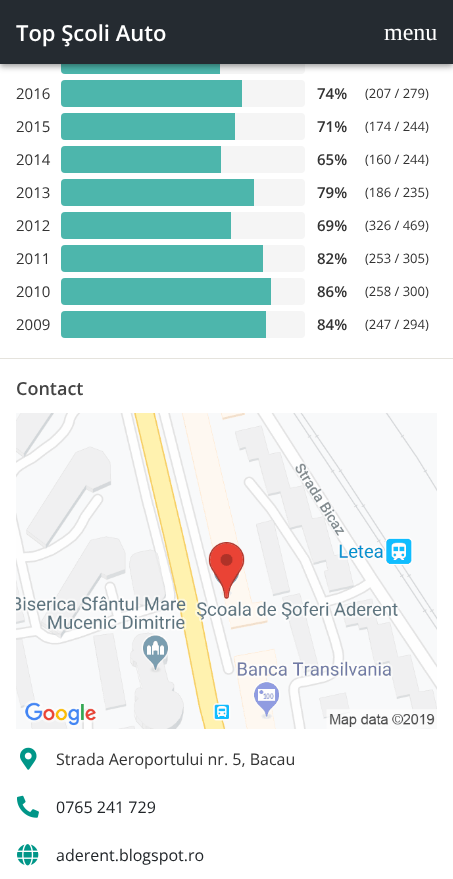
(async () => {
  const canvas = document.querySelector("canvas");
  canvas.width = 453;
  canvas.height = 879;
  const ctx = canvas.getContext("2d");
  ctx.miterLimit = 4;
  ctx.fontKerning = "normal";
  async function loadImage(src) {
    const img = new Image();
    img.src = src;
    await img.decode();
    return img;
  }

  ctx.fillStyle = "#ffffff";
  ctx.fillRect(0, 0, 453, 879);
  ctx.fillStyle = "#f5f5f5";
  ctx.beginPath();
  ctx.roundRect(61, 47, 244, 27, 4);
  ctx.fill();
  ctx.fillStyle = "#4db6ac";
  ctx.beginPath();
  ctx.roundRect(61, 47, 159, 27, [4, 0, 0, 4]);
  ctx.fill();
  ctx.fillStyle = "rgba(0, 0, 0, 0.2)";
  ctx.filter = "blur(2px)";
  ctx.beginPath();
  ctx.rect(1, 3, 451, 62);
  ctx.fill();
  ctx.filter = "none";
  ctx.fillStyle = "#f5f5f5";
  ctx.beginPath();
  ctx.roundRect(61, 80, 244, 27, 4);
  ctx.fill();
  ctx.fillStyle = "#4db6ac";
  ctx.beginPath();
  ctx.roundRect(61, 80, 181, 27, [4, 0, 0, 4]);
  ctx.fill();
  ctx.fillStyle = "rgba(0, 0, 0, 0.12)";
  ctx.filter = "blur(5px)";
  ctx.beginPath();
  ctx.rect(0, 1, 453, 64);
  ctx.fill();
  ctx.filter = "none";
  ctx.fillStyle = "rgba(0, 0, 0, 0.14)";
  ctx.filter = "blur(2.5px)";
  ctx.beginPath();
  ctx.rect(0, 4, 453, 64);
  ctx.fill();
  ctx.filter = "none";
  ctx.fillStyle = "#252b31";
  ctx.fillRect(0, 0, 453, 64);
  ctx.fillStyle = "#f5f5f5";
  ctx.beginPath();
  ctx.roundRect(61, 113, 244, 27, 4);
  ctx.fill();
  ctx.fillStyle = "#4db6ac";
  ctx.beginPath();
  ctx.roundRect(61, 113, 174, 27, [4, 0, 0, 4]);
  ctx.fill();
  ctx.fillStyle = "#f5f5f5";
  ctx.beginPath();
  ctx.roundRect(61, 146, 244, 27, 4);
  ctx.fill();
  ctx.fillStyle = "#4db6ac";
  ctx.beginPath();
  ctx.roundRect(61, 146, 160, 27, [4, 0, 0, 4]);
  ctx.fill();
  ctx.fillStyle = "#f5f5f5";
  ctx.beginPath();
  ctx.roundRect(61, 179, 244, 27, 4);
  ctx.fill();
  ctx.fillStyle = "#4db6ac";
  ctx.beginPath();
  ctx.roundRect(61, 179, 193, 27, [4, 0, 0, 4]);
  ctx.fill();
  ctx.fillStyle = "#f5f5f5";
  ctx.beginPath();
  ctx.roundRect(61, 212, 244, 27, 4);
  ctx.fill();
  ctx.fillStyle = "#4db6ac";
  ctx.beginPath();
  ctx.roundRect(61, 212, 170, 27, [4, 0, 0, 4]);
  ctx.fill();
  ctx.fillStyle = "#f5f5f5";
  ctx.beginPath();
  ctx.roundRect(61, 245, 244, 27, 4);
  ctx.fill();
  ctx.fillStyle = "#4db6ac";
  ctx.beginPath();
  ctx.roundRect(61, 245, 202, 27, [4, 0, 0, 4]);
  ctx.fill();
  ctx.fillStyle = "#f5f5f5";
  ctx.beginPath();
  ctx.roundRect(61, 278, 244, 27, 4);
  ctx.fill();
  ctx.fillStyle = "#4db6ac";
  ctx.beginPath();
  ctx.roundRect(61, 278, 210, 27, [4, 0, 0, 4]);
  ctx.fill();
  ctx.fillStyle = "#f5f5f5";
  ctx.beginPath();
  ctx.roundRect(61, 311, 244, 27, 4);
  ctx.fill();
  ctx.fillStyle = "#4db6ac";
  ctx.beginPath();
  ctx.roundRect(61, 311, 205, 27, [4, 0, 0, 4]);
  ctx.fill();
  ctx.fillStyle = "#e5e3dd";
  ctx.fillRect(0, 358, 453, 1);
  ctx.drawImage(await loadImage("img/1.png"), 16, 413, 421, 316);
  ctx.drawImage(await loadImage("img/2.png"), 20, 747, 17, 23);
  ctx.drawImage(await loadImage("img/3.png"), 17, 795, 22, 23);
  ctx.drawImage(await loadImage("img/4.png"), 17, 844, 22, 22);
  ctx.font = "600 22px Open Sans";
  ctx.fillStyle = "#ffffff";
  ctx.fillText("Top Şcoli Auto", 16, 41);
  ctx.font = "24px Liberation Serif";
  ctx.fillText("menu", 384, 40);
  ctx.font = "15px Open Sans";
  ctx.fillStyle = "#333333";
  ctx.fillText("2016", 16, 99);
  ctx.font = "600 15px Open Sans";
  ctx.fillText("74%", 317, 99);
  ctx.font = "13px Open Sans";
  ctx.fillText("(207 / 279)", 365, 98);
  ctx.font = "15px Open Sans";
  ctx.fillText("2015", 16, 132);
  ctx.font = "600 15px Open Sans";
  ctx.fillText("71%", 317, 132);
  ctx.font = "13px Open Sans";
  ctx.fillText("(174 / 244)", 365, 131);
  ctx.font = "15px Open Sans";
  ctx.fillText("2014", 16, 165);
  ctx.font = "600 15px Open Sans";
  ctx.fillText("65%", 317, 165);
  ctx.font = "13px Open Sans";
  ctx.fillText("(160 / 244)", 365, 164);
  ctx.font = "15px Open Sans";
  ctx.fillText("2013", 16, 198);
  ctx.font = "600 15px Open Sans";
  ctx.fillText("79%", 317, 198);
  ctx.font = "13px Open Sans";
  ctx.fillText("(186 / 235)", 365, 197);
  ctx.font = "15px Open Sans";
  ctx.fillText("2012", 16, 231);
  ctx.font = "600 15px Open Sans";
  ctx.fillText("69%", 317, 231);
  ctx.font = "13px Open Sans";
  ctx.fillText("(326 / 469)", 365, 230);
  ctx.font = "15px Open Sans";
  ctx.fillText("2011", 16, 264);
  ctx.font = "600 15px Open Sans";
  ctx.fillText("82%", 317, 264);
  ctx.font = "13px Open Sans";
  ctx.fillText("(253 / 305)", 365, 263);
  ctx.font = "15px Open Sans";
  ctx.fillText("2010", 16, 297);
  ctx.font = "600 15px Open Sans";
  ctx.fillText("86%", 317, 297);
  ctx.font = "13px Open Sans";
  ctx.fillText("(258 / 300)", 365, 296);
  ctx.font = "15px Open Sans";
  ctx.fillText("2009", 16, 330);
  ctx.font = "600 15px Open Sans";
  ctx.fillText("84%", 317, 330);
  ctx.font = "13px Open Sans";
  ctx.fillText("(247 / 294)", 365, 329);
  ctx.font = "600 18px Open Sans";
  ctx.fillStyle = "#444444";
  ctx.fillText("Contact", 16, 395);
  ctx.font = "16px Open Sans";
  ctx.fillStyle = "#333333";
  ctx.fillText("Strada Aeroportului nr. 5, Bacau", 56, 765);
  ctx.fillStyle = "#212529";
  ctx.fillText("0765 241 729", 56, 813);
  ctx.fillText("aderent.blogspot.ro", 56, 861);
})();
